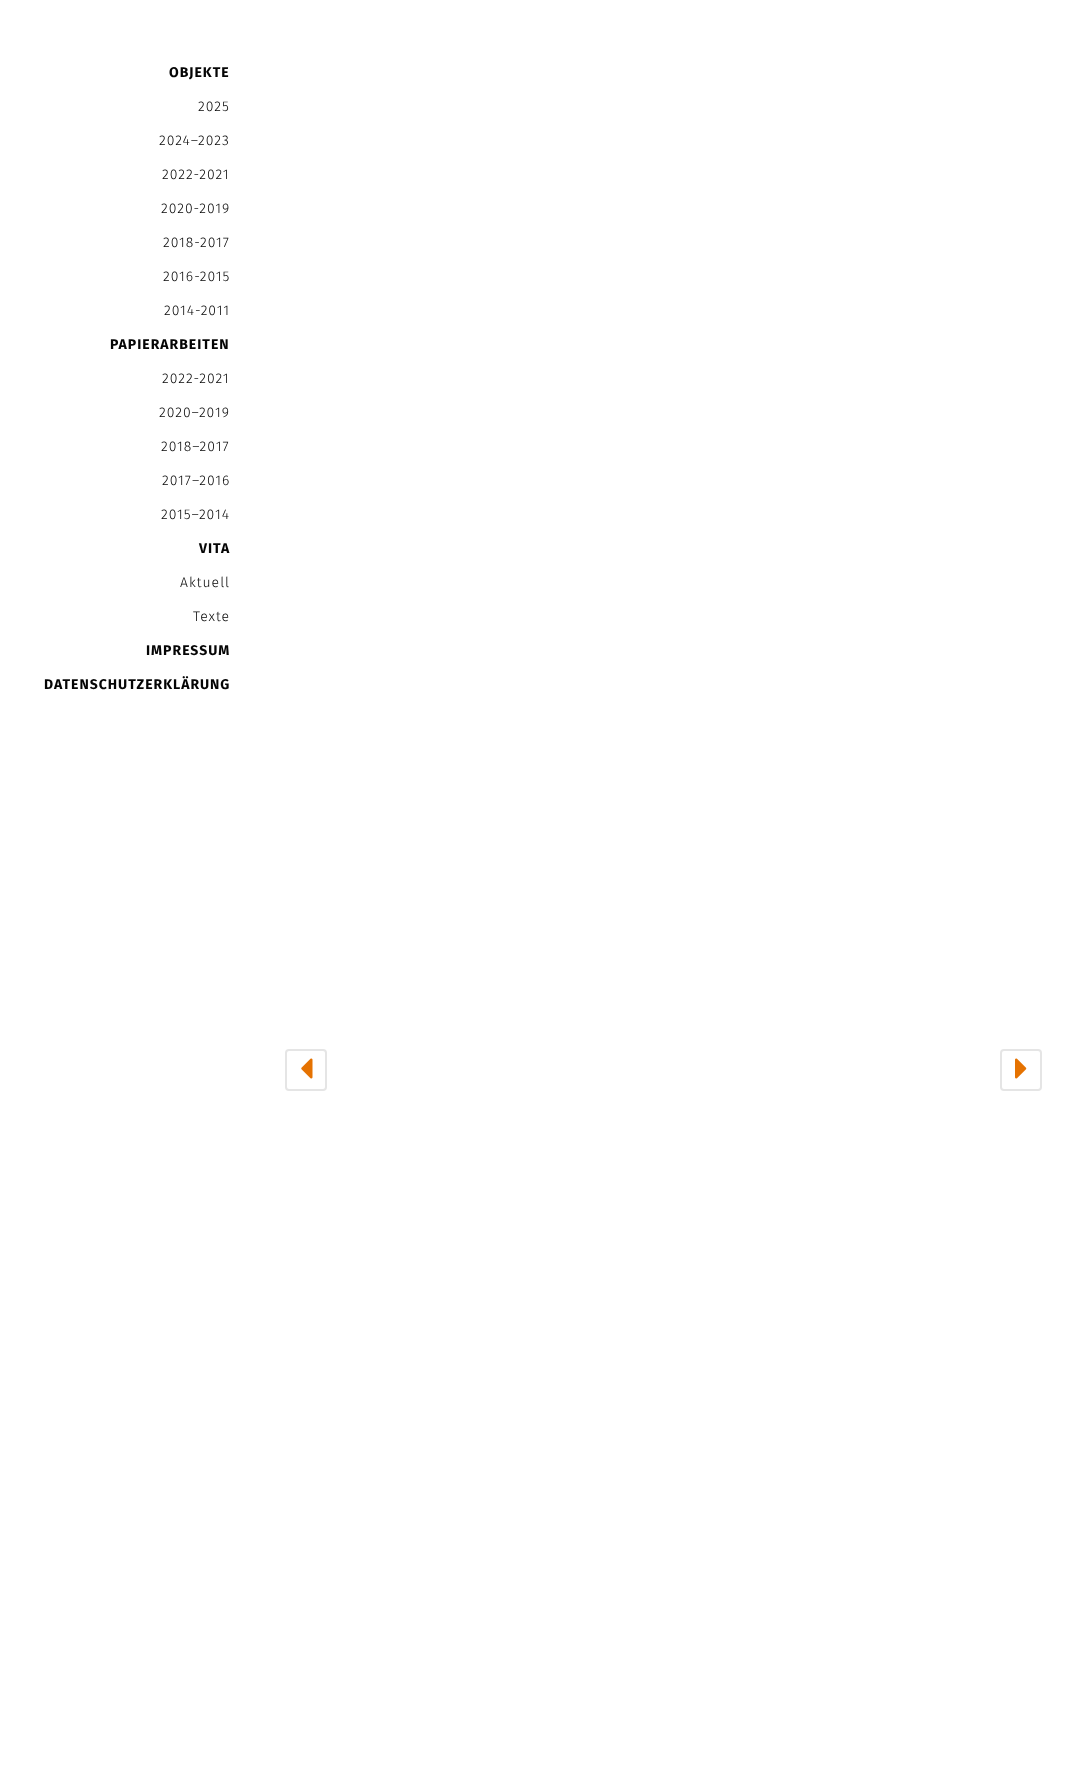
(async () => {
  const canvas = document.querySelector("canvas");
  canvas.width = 1078;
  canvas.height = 1779;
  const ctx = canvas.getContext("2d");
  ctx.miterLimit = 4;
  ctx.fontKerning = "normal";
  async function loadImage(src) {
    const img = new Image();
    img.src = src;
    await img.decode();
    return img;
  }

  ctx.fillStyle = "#ffffff";
  ctx.fillRect(0, 0, 1078, 1779);
  ctx.beginPath();
  ctx.roundRect(286, 1050, 40, 40, 3);
  ctx.strokeStyle = "#e5e5e5";
  ctx.lineWidth = 2;
  ctx.stroke();
  ctx.drawImage(await loadImage("img/1.png"), 301, 1058, 12, 21);
  ctx.beginPath();
  ctx.roundRect(1001, 1050, 40, 40, 3);
  ctx.stroke();
  ctx.drawImage(await loadImage("img/2.png"), 1015, 1058, 12, 21);
  ctx.letterSpacing = "1px";
  ctx.font = "bold 14px Fira Sans";
  ctx.fillStyle = "#050505";
  ctx.fillText("OBJEKTE", 169, 77);
  ctx.font = "300 14px Fira Sans";
  for (const [text, x, y] of [
    ["2025", 198, 111],
    ["2024–2023", 159, 145],
    ["2022-2021", 162, 179],
    ["2020-2019", 161, 213],
    ["2018-2017", 163, 247],
    ["2016-2015", 163, 281],
    ["2014-2011", 164, 315],
  ]) {
    ctx.fillText(text, x, y);
  }
  ctx.font = "bold 14px Fira Sans";
  ctx.fillText("PAPIERARBEITEN", 110, 349);
  ctx.font = "300 14px Fira Sans";
  for (const [text, x, y] of [
    ["2022-2021", 162, 383],
    ["2020–2019", 159, 417],
    ["2018–2017", 161, 451],
    ["2017–2016", 162, 485],
    ["2015–2014", 161, 519],
  ]) {
    ctx.fillText(text, x, y);
  }
  ctx.font = "bold 14px Fira Sans";
  ctx.fillText("VITA", 199, 553);
  ctx.font = "300 14px Fira Sans";
  ctx.fillText("Aktuell", 180, 587);
  ctx.fillText("Texte", 193, 621);
  ctx.font = "bold 14px Fira Sans";
  ctx.fillText("IMPRESSUM", 146, 655);
  ctx.fillText("DATENSCHUTZERKLÄRUNG", 44, 689);
})();
